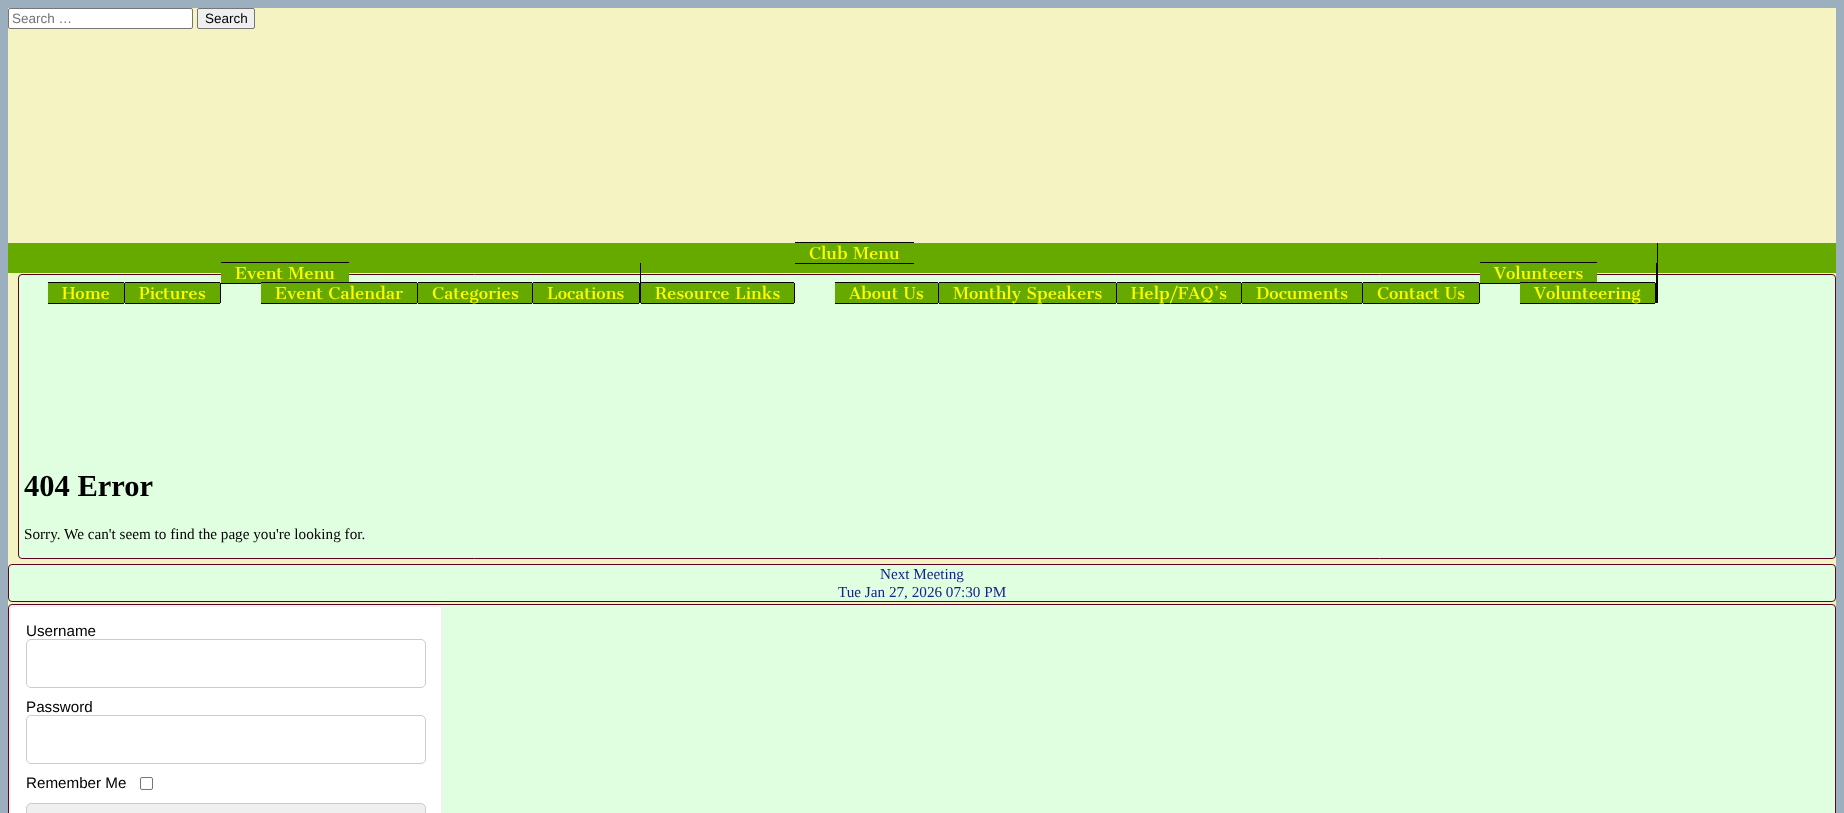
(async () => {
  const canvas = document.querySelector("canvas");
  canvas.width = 1844;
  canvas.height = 813;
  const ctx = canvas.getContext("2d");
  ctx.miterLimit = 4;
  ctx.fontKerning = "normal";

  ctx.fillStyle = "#9cafbf";
  ctx.fillRect(0, 0, 1844, 813);
  ctx.fillStyle = "#f4f3c1";
  ctx.fillRect(8, 8, 1828, 600);
  ctx.fillStyle = "#ffffff";
  ctx.beginPath();
  ctx.roundRect(8.5, 8.5, 184, 20, 1.5);
  ctx.fill();
  ctx.strokeStyle = "#767676";
  ctx.stroke();
  ctx.fillStyle = "#efefef";
  ctx.beginPath();
  ctx.roundRect(197.5, 8.5, 57, 20, 1.5);
  ctx.fill();
  ctx.stroke();
  ctx.fillStyle = "#66aa00";
  ctx.fillRect(8, 243, 1828, 30);
  ctx.fillStyle = "#e0ffe0";
  ctx.beginPath();
  ctx.roundRect(18.5, 274.5, 1817, 284, 3.5);
  ctx.fill();
  ctx.strokeStyle = "#5e0422";
  ctx.stroke();
  for (const [x, y, w, h, color] of [
    [124, 283, 1, 20, "#000000"],
    [48, 283, 76, 20, "#66aa00"],
    [48, 282, 76, 1, "#000000"],
    [48, 303, 76, 1, "#000000"],
    [220, 283, 1, 20, "#000000"],
    [125, 283, 95, 20, "#66aa00"],
    [125, 282, 95, 1, "#000000"],
    [125, 303, 95, 1, "#000000"],
    [640, 263, 1, 40, "#000000"],
    [221, 273, 128, 10, "#66aa00"],
    [221, 262, 128, 1, "#000000"],
    [221, 283, 40, 1, "#000000"],
    [417, 283, 1, 20, "#000000"],
    [261, 283, 156, 20, "#66aa00"],
    [261, 282, 156, 1, "#000000"],
    [261, 303, 156, 1, "#000000"],
    [532, 283, 1, 20, "#000000"],
    [418, 283, 114, 20, "#66aa00"],
    [418, 282, 114, 1, "#000000"],
    [418, 303, 114, 1, "#000000"],
    [639, 283, 1, 20, "#000000"],
    [533, 283, 106, 20, "#66aa00"],
    [533, 282, 106, 1, "#000000"],
    [533, 303, 106, 1, "#000000"],
    [794, 283, 1, 20, "#000000"],
    [641, 283, 153, 20, "#66aa00"],
    [641, 282, 153, 1, "#000000"],
    [641, 303, 153, 1, "#000000"],
    [1657, 243, 1, 60, "#000000"],
    [795, 242, 119, 1, "#000000"],
    [795, 263, 119, 1, "#000000"],
    [938, 283, 1, 20, "#000000"],
    [835, 283, 103, 20, "#66aa00"],
    [835, 282, 103, 1, "#000000"],
    [835, 303, 103, 1, "#000000"],
    [1116, 283, 1, 20, "#000000"],
    [939, 283, 177, 20, "#66aa00"],
    [939, 282, 177, 1, "#000000"],
    [939, 303, 177, 1, "#000000"],
    [1241, 283, 1, 20, "#000000"],
    [1117, 283, 124, 20, "#66aa00"],
    [1117, 282, 124, 1, "#000000"],
    [1117, 303, 124, 1, "#000000"],
    [1362, 283, 1, 20, "#000000"],
    [1242, 283, 120, 20, "#66aa00"],
    [1242, 282, 120, 1, "#000000"],
    [1242, 303, 120, 1, "#000000"],
    [1479, 283, 1, 20, "#000000"],
    [1363, 283, 116, 20, "#66aa00"],
    [1363, 282, 116, 1, "#000000"],
    [1363, 303, 116, 1, "#000000"],
    [1656, 263, 1, 40, "#000000"],
    [1480, 273, 117, 10, "#66aa00"],
    [1480, 262, 117, 1, "#000000"],
    [1480, 283, 40, 1, "#000000"],
    [1655, 283, 1, 20, "#000000"],
    [1520, 283, 135, 20, "#66aa00"],
    [1520, 282, 135, 1, "#000000"],
    [1520, 303, 135, 1, "#000000"],
  ]) {
    ctx.fillStyle = color;
    ctx.fillRect(x, y, w, h);
  }
  ctx.fillStyle = "#e0ffe0";
  ctx.beginPath();
  ctx.roundRect(8.5, 564.5, 1827, 37, 3.5);
  ctx.fill();
  ctx.stroke();
  ctx.beginPath();
  ctx.roundRect(8.5, 604.5, 1827, 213, 3.5);
  ctx.fill();
  ctx.stroke();
  ctx.fillStyle = "#ffffff";
  ctx.beginPath();
  ctx.roundRect(10, 606, 432, 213, 4);
  ctx.fill();
  ctx.strokeStyle = "#f1f1f1";
  ctx.lineWidth = 2;
  ctx.stroke();
  ctx.beginPath();
  ctx.roundRect(26.5, 639.5, 399, 48, 4.5);
  ctx.strokeStyle = "#cccccc";
  ctx.lineWidth = 1;
  ctx.stroke();
  ctx.beginPath();
  ctx.roundRect(26.5, 715.5, 399, 48, 4.5);
  ctx.stroke();
  ctx.beginPath();
  ctx.roundRect(140.5, 777.5, 12, 12, 1.5);
  ctx.strokeStyle = "#767676";
  ctx.stroke();
  ctx.fillStyle = "#efefef";
  ctx.beginPath();
  ctx.roundRect(26.5, 803.5, 399, 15, 4.5);
  ctx.fill();
  ctx.strokeStyle = "#cccccc";
  ctx.stroke();
  ctx.font = "13.5px Liberation Sans";
  ctx.fillStyle = "#757575";
  ctx.fillText("Search …", 12, 23);
  ctx.fillStyle = "#000000";
  ctx.fillText("Search", 205, 23);
  ctx.font = "16px Cantata One";
  ctx.fillStyle = "#ffff00";
  for (const [text, x, y] of [
    ["Home", 62, 299],
    ["Pictures", 139, 299],
    ["Event Menu", 235, 279],
    ["Event Calendar", 275, 299],
    ["Categories", 432, 299],
    ["Locations", 547, 299],
    ["Resource Links", 655, 299],
    ["Club Menu", 809, 259],
    ["About Us", 849, 299],
    ["Monthly Speakers", 953, 299],
    ["Help/FAQ’s", 1131, 299],
    ["Documents", 1256, 299],
    ["Contact Us", 1377, 299],
    ["Volunteers", 1494, 279],
    ["Volunteering", 1534, 299],
  ]) {
    ctx.fillText(text, x, y);
  }
  ctx.font = "bold 30.5px Liberation Serif";
  ctx.fillStyle = "#000000";
  ctx.fillText("404 Error", 24, 496);
  ctx.font = "15.2px Liberation Serif";
  ctx.fillText("Sorry. We can't seem to find the page you're looking for.", 24, 539);
  ctx.fillStyle = "#15228f";
  ctx.fillText("Next Meeting", 880, 579);
  ctx.fillText("Tue Jan 27, 2026 07:30 PM", 838, 597);
  ctx.font = "15.2px Liberation Sans";
  ctx.fillStyle = "#000000";
  for (const [text, x, y] of [
    ["Username", 26, 636],
    ["Password", 26, 712],
    ["Remember Me", 26, 788],
  ]) {
    ctx.fillText(text, x, y);
  }
})();
